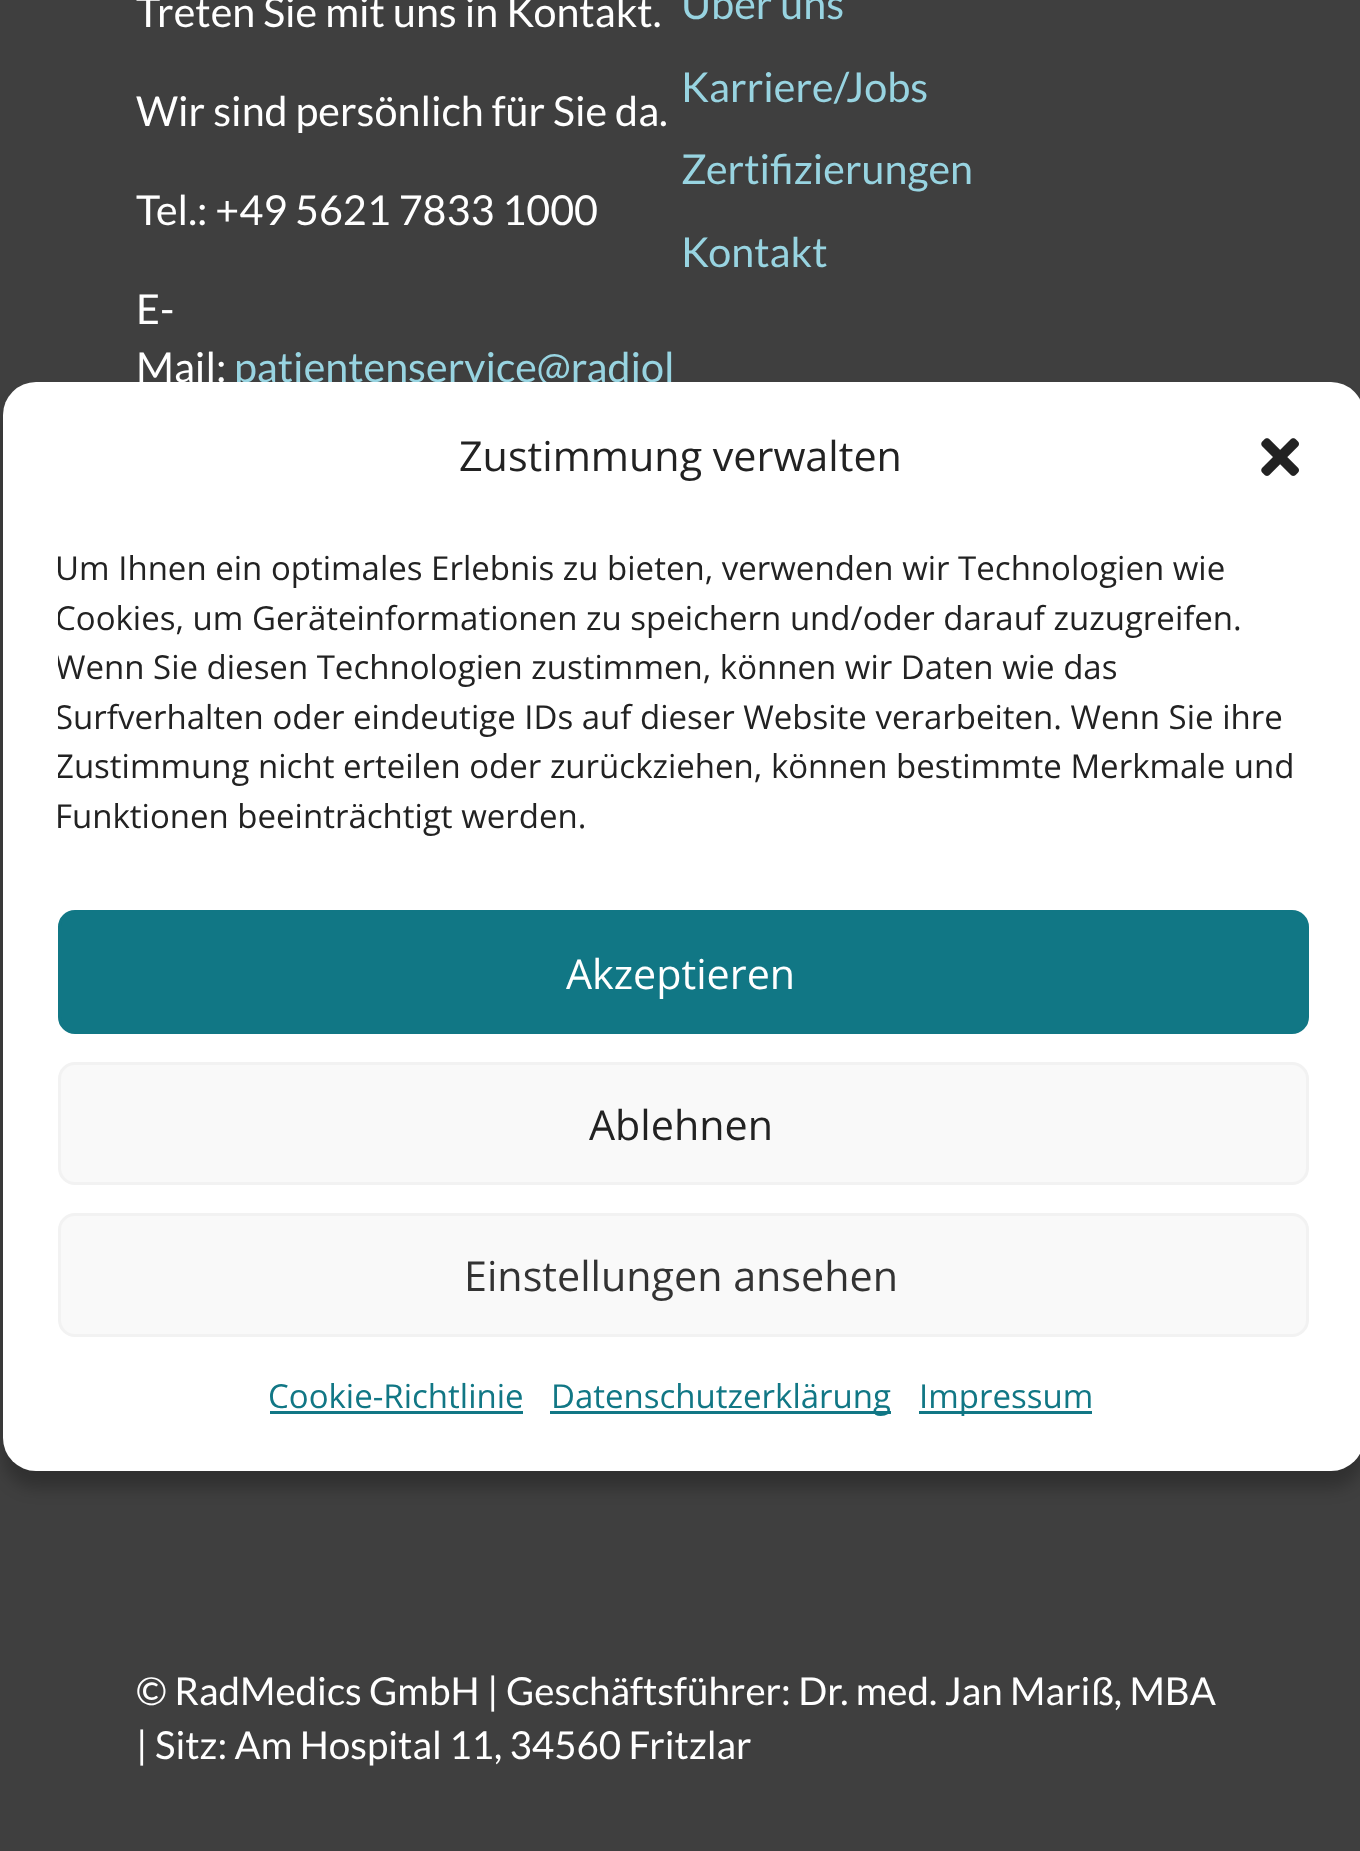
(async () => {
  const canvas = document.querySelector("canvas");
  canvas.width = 1360;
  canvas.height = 1851;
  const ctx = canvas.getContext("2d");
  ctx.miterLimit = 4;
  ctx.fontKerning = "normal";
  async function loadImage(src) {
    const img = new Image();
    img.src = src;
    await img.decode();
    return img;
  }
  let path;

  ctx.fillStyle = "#3f3f3f";
  ctx.fillRect(0, 0, 1360, 1851);
  ctx.save();
  path = new Path2D("M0 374H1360V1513H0ZM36 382H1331C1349 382 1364 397 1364 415V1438C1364 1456 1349 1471 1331 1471H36C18 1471 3 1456 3 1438V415C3 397 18 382 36 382Z");
  ctx.clip(path, "evenodd");
  ctx.fillStyle = "rgba(0, 0, 0, 0.23)";
  ctx.filter = "blur(8px)";
  ctx.beginPath();
  ctx.roundRect(3, 399, 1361, 1089, 33);
  ctx.fill();
  ctx.filter = "none";
  ctx.restore();
  ctx.font = "41.25px Lato";
  ctx.fillStyle = "#ffffff";
  for (const [text, x, y] of [
    ["Treten Sie mit uns in Kontakt.", 136, 27],
    ["Wir sind persönlich für Sie da.", 136, 126],
    ["Tel.: +49 5621 7833 1000", 136, 225],
    ["E-", 136, 324],
    ["Mail:", 136, 382],
  ]) {
    ctx.fillText(text, x, y);
  }
  ctx.fillStyle = "#98d4e1";
  for (const [text, x, y] of [
    ["patientenservice@radiol", 234, 382],
    ["Über uns", 681, 19],
    ["Karriere/Jobs", 681, 102],
    ["Zertifizierungen", 681, 184],
    ["Kontakt", 681, 267],
  ]) {
    ctx.fillText(text, x, y);
  }
  ctx.font = "38.5px Lato";
  ctx.fillStyle = "#ffffff";
  ctx.fillText("© RadMedics GmbH | Geschäftsführer: Dr. med. Jan Mariß, MBA", 136, 1705);
  ctx.fillText("| Sitz: Am Hospital 11, 34560 Fritzlar", 136, 1759);
  ctx.beginPath();
  ctx.roundRect(3, 382, 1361, 1089, 33);
  ctx.fill();
  ctx.font = "41.25px Open Sans";
  ctx.fillStyle = "#222222";
  ctx.fillText("Zustimmung verwalten", 459, 471);
  ctx.drawImage(await loadImage("img/1.png"), 1261, 438, 38, 38);
  ctx.font = "33px Open Sans";
  ctx.fillText("Um Ihnen ein optimales Erlebnis zu bieten, verwenden wir Technologien wie", 55, 580);
  ctx.save();
  ctx.beginPath();
  ctx.rect(58, 545, 1251, 310);
  ctx.clip();
  for (const [text, x, y] of [
    ["Cookies, um Geräteinformationen zu speichern und/oder darauf zuzugreifen.", 55, 630],
    ["Wenn Sie diesen Technologien zustimmen, können wir Daten wie das", 55, 679],
    ["Surfverhalten oder eindeutige IDs auf dieser Website verarbeiten. Wenn Sie ihre", 55, 729],
    ["Zustimmung nicht erteilen oder zurückziehen, können bestimmte Merkmale und", 55, 778],
  ]) {
    ctx.fillText(text, x, y);
  }
  ctx.restore();
  ctx.fillText("Funktionen beeinträchtigt werden.", 55, 828);
  ctx.fillStyle = "#117785";
  ctx.beginPath();
  ctx.roundRect(59.5, 911.5, 1248, 121, 15.5);
  ctx.fill();
  ctx.strokeStyle = "#117785";
  ctx.lineWidth = 3;
  ctx.stroke();
  ctx.font = "41.25px Open Sans";
  ctx.fillStyle = "#ffffff";
  ctx.fillText("Akzeptieren", 566, 989);
  ctx.fillStyle = "#f9f9f9";
  ctx.beginPath();
  ctx.roundRect(59.5, 1063.5, 1248, 120, 15.5);
  ctx.fill();
  ctx.strokeStyle = "#f2f2f2";
  ctx.stroke();
  ctx.fillStyle = "#222222";
  ctx.fillText("Ablehnen", 589, 1140);
  ctx.fillStyle = "#f9f9f9";
  ctx.beginPath();
  ctx.roundRect(59.5, 1214.5, 1248, 121, 15.5);
  ctx.fill();
  ctx.stroke();
  ctx.fillStyle = "#333333";
  ctx.fillText("Einstellungen ansehen", 464, 1291);
  ctx.font = "33px Open Sans";
  ctx.fillStyle = "#117785";
  ctx.fillText("Cookie-Richtlinie", 268, 1408);
  ctx.fillRect(270, 1411, 253, 3);
  ctx.fillRect(550, 1411, 341, 3);
  ctx.fillText("Datenschutzerklärung", 551, 1408);
  ctx.fillRect(919, 1411, 173, 3);
  ctx.fillText("Impressum", 919, 1408);
})();
